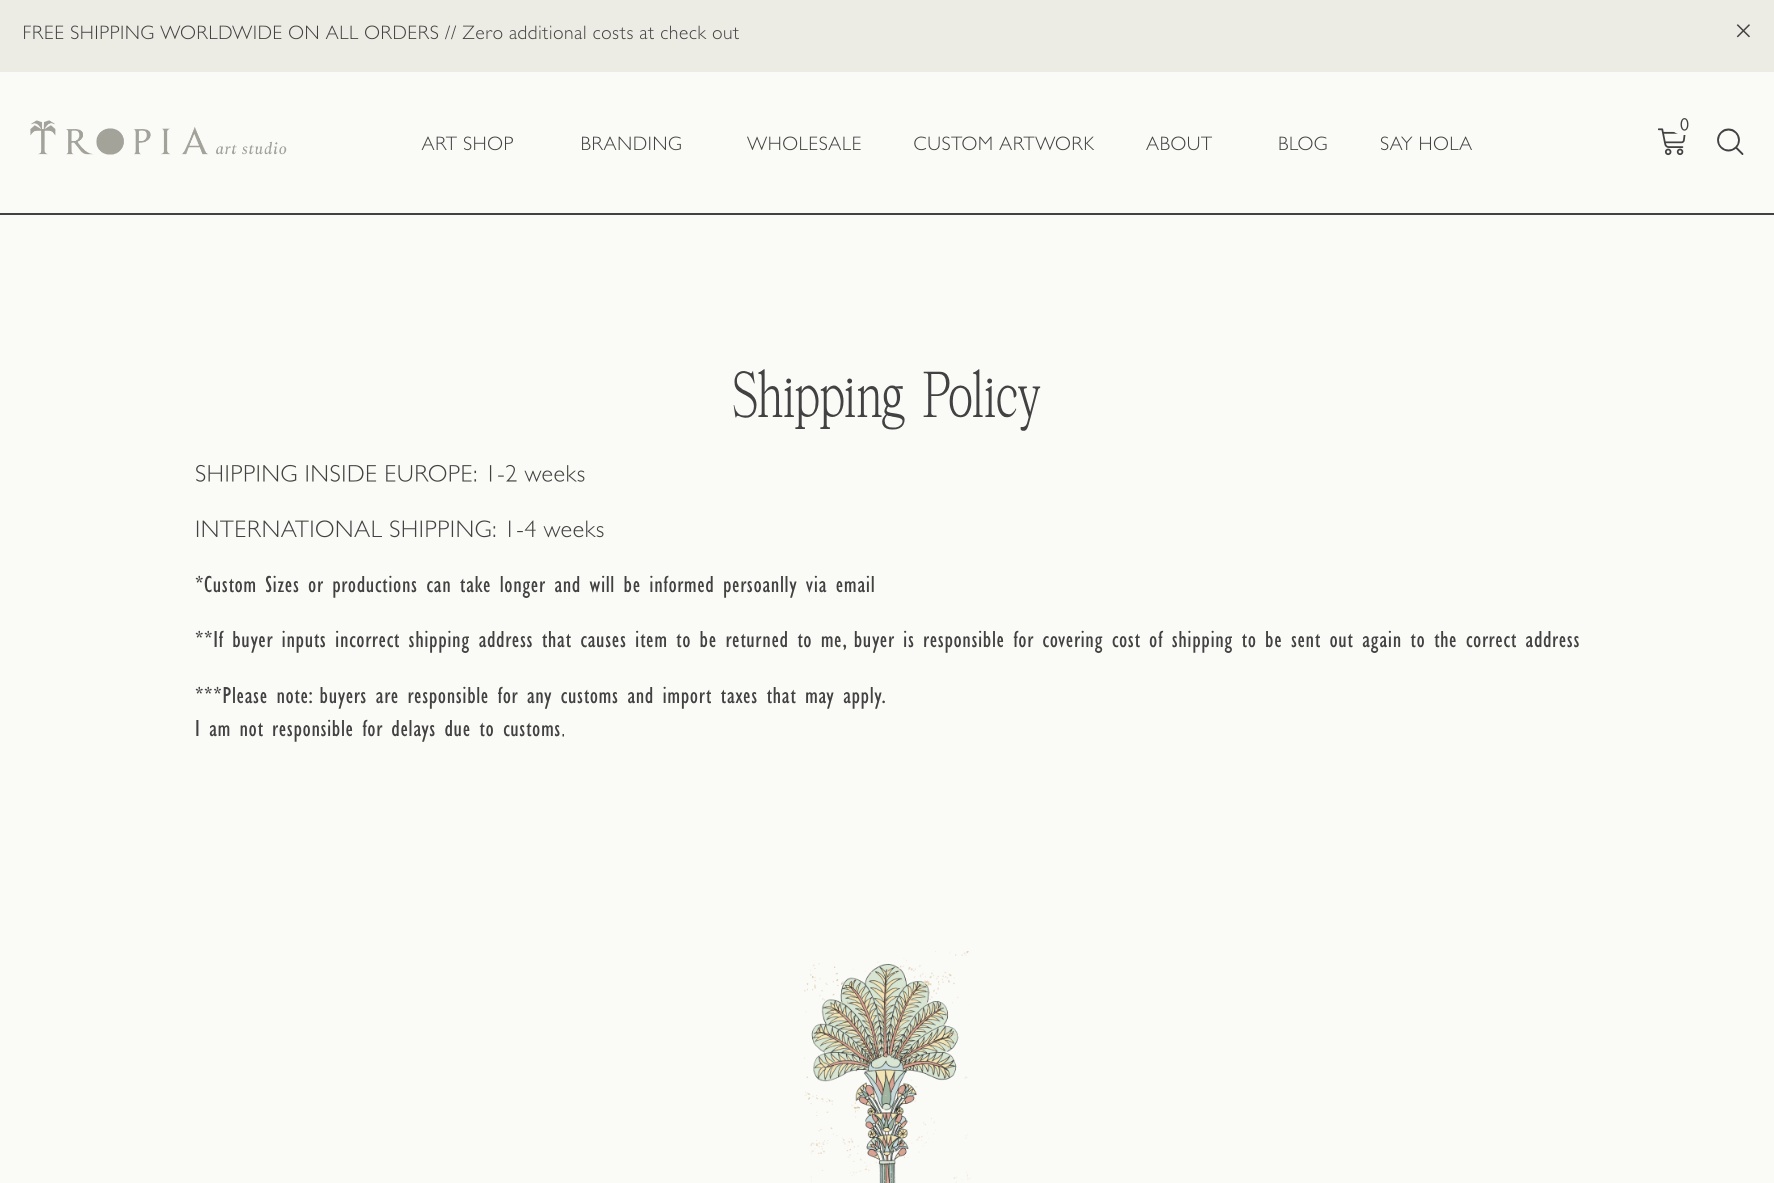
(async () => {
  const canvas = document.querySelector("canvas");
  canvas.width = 1774;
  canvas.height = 1183;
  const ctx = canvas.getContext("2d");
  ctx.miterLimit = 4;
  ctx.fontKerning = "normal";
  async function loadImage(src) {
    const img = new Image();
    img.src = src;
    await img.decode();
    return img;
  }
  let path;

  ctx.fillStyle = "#fafaf7";
  ctx.fillRect(0, 0, 1774, 1183);
  ctx.fillStyle = "#edece4";
  ctx.fillRect(0, 0, 1774, 72);
  ctx.drawImage(await loadImage("img/1.png"), 24, 25, 715, 15);
  ctx.drawImage(await loadImage("img/2.png"), 1736, 24, 14, 14);
  ctx.fillStyle = "#424242";
  ctx.fillRect(0, 213, 1774, 2);
  ctx.drawImage(await loadImage("img/3.png"), 30, 120, 257, 35);
  ctx.drawImage(await loadImage("img/4.png"), 421, 136, 92, 15);
  ctx.drawImage(await loadImage("img/5.png"), 582, 136, 99, 15);
  ctx.drawImage(await loadImage("img/6.png"), 747, 136, 114, 15);
  ctx.drawImage(await loadImage("img/7.png"), 914, 136, 181, 15);
  ctx.drawImage(await loadImage("img/8.png"), 1146, 136, 67, 15);
  ctx.drawImage(await loadImage("img/9.png"), 1279, 136, 48, 15);
  ctx.drawImage(await loadImage("img/10.png"), 1380, 136, 92, 15);
  ctx.drawImage(await loadImage("img/12.png"), 1658, 128, 28, 28);
  ctx.fillStyle = "#fafaf7";
  ctx.beginPath();
  ctx.ellipse(1684, 124.5, 14, 10.5, 0, 0, Math.PI * 2);
  ctx.fill();
  ctx.drawImage(await loadImage("img/11.png"), 1680, 118, 9, 13);
  ctx.beginPath();
  ctx.arc(1728.5, 140, 10.5, 0, Math.PI * 2);
  ctx.strokeStyle = "#424242";
  ctx.lineWidth = 1.8;
  ctx.stroke();
  path = new Path2D("M1736.5 148L1742.5 154");
  ctx.lineCap = "round";
  ctx.lineJoin = "round";
  ctx.stroke(path);
  ctx.drawImage(await loadImage("img/13.png"), 196, 464, 389, 18);
  ctx.drawImage(await loadImage("img/14.png"), 196, 520, 408, 18);
  ctx.fillStyle = "#424242";
  path = new Path2D("M564 734V736.5H562.5V734Z");
  ctx.fill(path);
  ctx.drawImage(await loadImage("img/15.png"), 804, 951, 167, 232);
  ctx.letterSpacing = "0.6px";
  ctx.font = "66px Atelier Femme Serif";
  ctx.fillText("Shipping Policy", 733, 417);
  ctx.font = "italic 24px Gill Sans";
  for (const [text, x, y] of [
    ["*Custom Sizes or productions can take longer and will be informed persoanlly via email", 195, 592],
    ["**If buyer inputs incorrect shipping address that causes item to be returned to me, buyer is responsible for covering cost of shipping to be sent out again to the correct address", 195, 647],
    ["***Please note: buyers are responsible for any customs and import taxes that may apply.", 195, 703],
    ["I am not responsible for delays due to customs", 195, 736],
  ]) {
    ctx.fillText(text, x, y);
  }
})();
